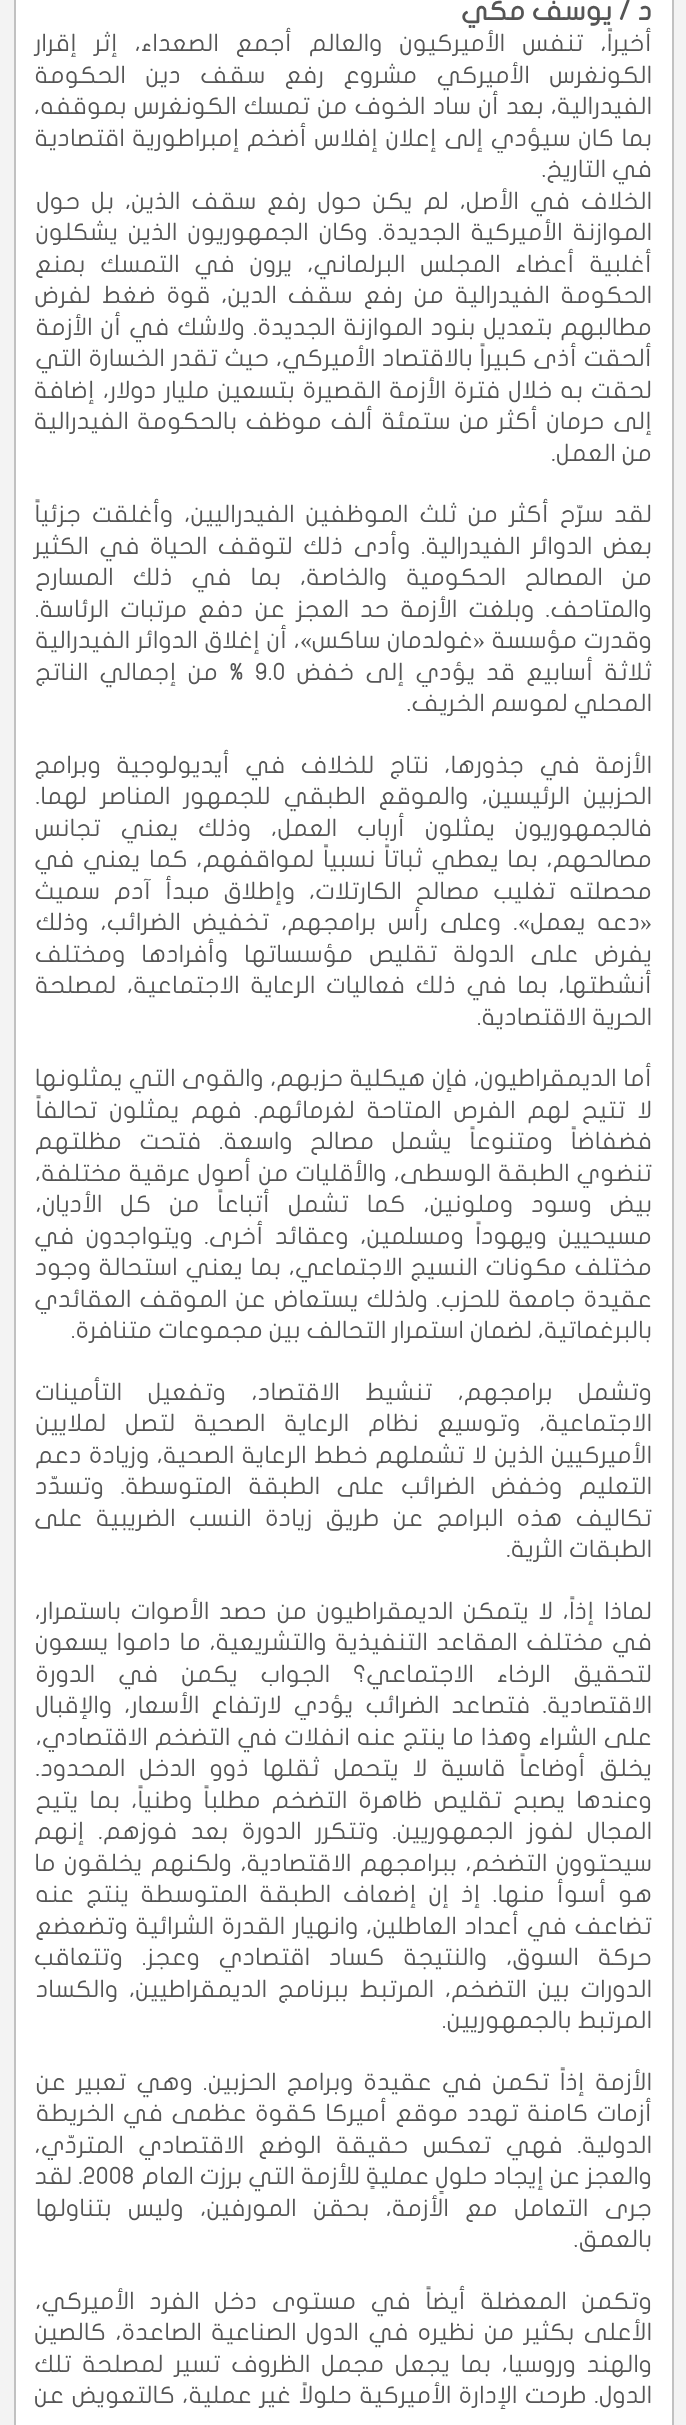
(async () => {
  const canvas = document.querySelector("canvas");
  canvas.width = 686;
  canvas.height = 2425;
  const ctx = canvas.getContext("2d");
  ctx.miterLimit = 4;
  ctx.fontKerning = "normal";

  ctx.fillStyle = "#f3f3f3";
  ctx.fillRect(0, 0, 686, 2425);
  ctx.fillStyle = "#ffffff";
  ctx.beginPath();
  ctx.rect(15, -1, 658, 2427);
  ctx.fill();
  ctx.strokeStyle = "#c1c1c1";
  ctx.lineWidth = 2;
  ctx.stroke();
  ctx.direction = "rtl";
  ctx.font = "bold 27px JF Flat";
  ctx.fillStyle = "#555555";
  ctx.fillText("د", 652, 20);
  ctx.fillText("/ يوسف مكي", 631, 20);
  ctx.wordSpacing = "11px";
  ctx.font = "24px JF Flat";
  ctx.fillText("أخيراً، تنفس الأميركيون والعالم أجمع الصعداء، إثر إقرار", 652, 51);
  ctx.wordSpacing = "13.5px";
  ctx.fillText("الكونغرس الأميركي مشروع رفع سقف دين الحكومة", 652, 83);
  ctx.wordSpacing = "1.25px";
  ctx.fillText("الفيدرالية، بعد أن ساد الخوف من تمسك الكونغرس بموقفه،", 652, 114);
  ctx.wordSpacing = "1.5px";
  ctx.fillText("بما كان سيؤدي إلى إعلان إفلاس أضخم إمبراطورية اقتصادية", 652, 146);
  ctx.wordSpacing = "0px";
  ctx.fillText("في التاريخ.", 652, 177);
  ctx.wordSpacing = "5px";
  ctx.fillText("الخلاف في الأصل، لم يكن حول رفع سقف الذين، بل حول", 652, 209);
  ctx.wordSpacing = "4.25px";
  ctx.fillText("الموازنة الأميركية الجديدة. وكان الجمهوريون الذين يشكلون", 652, 240);
  ctx.wordSpacing = "9px";
  ctx.fillText("أغلبية أعضاء المجلس البرلماني، يرون في التمسك بمنع", 652, 272);
  ctx.wordSpacing = "5px";
  ctx.fillText("الحكومة الفيدرالية من رفع سقف الدين، قوة ضغط لفرض", 652, 303);
  ctx.wordSpacing = "2px";
  ctx.fillText("مطالبهم بتعديل بنود الموازنة الجديدة. ولاشك في أن الأزمة", 652, 335);
  ctx.wordSpacing = "0.75px";
  ctx.fillText("ألحقت أذى كبيراً بالاقتصاد الأميركي، حيث تقدر الخسارة التي", 652, 366);
  ctx.wordSpacing = "2px";
  ctx.fillText("لحقت به خلال فترة الأزمة القصيرة بتسعين مليار دولار، إضافة", 652, 398);
  ctx.wordSpacing = "2.5px";
  ctx.fillText("إلى حرمان أكثر من ستمئة ألف موظف بالحكومة الفيدرالية", 652, 429);
  ctx.wordSpacing = "0px";
  ctx.fillText("من العمل.", 652, 461);
  ctx.wordSpacing = "5px";
  ctx.fillText("لقد سرّح أكثر من ثلث الموظفين الفيدراليين، وأغلقت جزئياً", 652, 522);
  ctx.wordSpacing = "4.5px";
  ctx.fillText("بعض الدوائر الفيدرالية. وأدى ذلك لتوقف الحياة في الكثير", 652, 554);
  ctx.wordSpacing = "13px";
  ctx.fillText("من المصالح الحكومية والخاصة، بما في ذلك المسارح", 652, 585);
  ctx.wordSpacing = "5.25px";
  ctx.fillText("والمتاحف. وبلغت الأزمة حد العجز عن دفع مرتبات الرئاسة.", 652, 617);
  ctx.wordSpacing = "0.5px";
  ctx.fillText("وقدرت مؤسسة", 652, 648);
  ctx.wordSpacing = "0px";
  ctx.font = "24px Liberation Serif";
  ctx.fillText("«", 485, 648);
  ctx.wordSpacing = "0.5px";
  ctx.font = "24px JF Flat";
  ctx.fillText("غولدمان ساكس", 473, 648);
  ctx.wordSpacing = "0px";
  ctx.font = "24px Liberation Serif";
  ctx.fillText("»", 312, 648);
  ctx.wordSpacing = "0.5px";
  ctx.font = "24px JF Flat";
  ctx.fillText("، أن إغلاق الدوائر الفيدرالية", 300, 648);
  ctx.wordSpacing = "5.25px";
  ctx.fillText("ثلاثة أسابيع قد يؤدي إلى خفض", 652, 680);
  ctx.wordSpacing = "0px";
  ctx.direction = "ltr";
  ctx.fillText("9.0", 255, 680);
  ctx.wordSpacing = "5.25px";
  ctx.direction = "rtl";
  ctx.fillText("% من إجمالي الناتج", 244, 680);
  ctx.wordSpacing = "0px";
  ctx.fillText("المحلي لموسم الخريف.", 652, 711);
  ctx.wordSpacing = "9.5px";
  ctx.fillText("الأزمة في جذورها، نتاج للخلاف في أيديولوجية وبرامج", 652, 773);
  ctx.wordSpacing = "7.25px";
  ctx.fillText("الحزبين الرئيسين، والموقع الطبقي للجمهور المناصر لهما.", 652, 804);
  ctx.wordSpacing = "14px";
  ctx.fillText("فالجمهوريون يمثلون أرباب العمل، وذلك يعني تجانس", 652, 836);
  ctx.wordSpacing = "2.75px";
  ctx.fillText("مصالحهم، بما يعطي ثباتاً نسبياً لمواقفهم، كما يعني في", 652, 867);
  ctx.wordSpacing = "7.75px";
  ctx.fillText("محصلته تغليب مصالح الكارتلات، وإطلاق مبدأ آدم سميث", 652, 899);
  ctx.wordSpacing = "0px";
  ctx.font = "24px Liberation Serif";
  ctx.fillText("«", 652, 930);
  ctx.wordSpacing = "6px";
  ctx.font = "24px JF Flat";
  ctx.fillText("دعه يعمل", 640, 930);
  ctx.wordSpacing = "0px";
  ctx.font = "24px Liberation Serif";
  ctx.fillText("»", 530, 930);
  ctx.wordSpacing = "6px";
  ctx.font = "24px JF Flat";
  ctx.fillText(". وعلى رأس برامجهم، تخفيض الضرائب، وذلك", 518, 930);
  ctx.wordSpacing = "10px";
  ctx.fillText("يفرض على الدولة تقليص مؤسساتها وأفرادها ومختلف", 652, 962);
  ctx.wordSpacing = "4.75px";
  ctx.fillText("أنشطتها، بما في ذلك فعاليات الرعاية الاجتماعية، لمصلحة", 652, 993);
  ctx.wordSpacing = "0px";
  ctx.fillText("الحرية الاقتصادية.", 652, 1025);
  ctx.wordSpacing = "0.5px";
  ctx.fillText("أما الديمقراطيون، فإن هيكلية حزبهم، والقوى التي يمثلونها", 652, 1086);
  ctx.wordSpacing = "6px";
  ctx.fillText("لا تتيح لهم الفرص المتاحة لغرمائهم. فهم يمثلون تحالفاً", 652, 1118);
  ctx.wordSpacing = "11.75px";
  ctx.fillText("فضفاضاً ومتنوعاً يشمل مصالح واسعة. فتحت مظلتهم", 652, 1149);
  ctx.wordSpacing = "1px";
  ctx.fillText("تنضوي الطبقة الوسطى، والأقليات من أصول عرقية مختلفة،", 652, 1181);
  ctx.wordSpacing = "12px";
  ctx.fillText("بيض وسود وملونين، كما تشمل أتباعاً من كل الأديان،", 652, 1212);
  ctx.wordSpacing = "5.5px";
  ctx.fillText("مسيحيين ويهوداً ومسلمين، وعقائد أخرى. ويتواجدون في", 652, 1244);
  ctx.wordSpacing = "1.75px";
  ctx.fillText("مختلف مكونات النسيج الاجتماعي، بما يعني استحالة وجود", 652, 1275);
  ctx.wordSpacing = "2.25px";
  ctx.fillText("عقيدة جامعة للحزب. ولذلك يستعاض عن الموقف العقائدي", 652, 1307);
  ctx.wordSpacing = "0px";
  ctx.fillText("بالبرغماتية، لضمان استمرار التحالف بين مجموعات متنافرة.", 652, 1338);
  ctx.wordSpacing = "19.5px";
  ctx.fillText("وتشمل برامجهم، تنشيط الاقتصاد، وتفعيل التأمينات", 652, 1400);
  ctx.wordSpacing = "13px";
  ctx.fillText("الاجتماعية، وتوسيع نظام الرعاية الصحية لتصل لملايين", 652, 1431);
  ctx.wordSpacing = "1.5px";
  ctx.fillText("الأميركيين الذين لا تشملهم خطط الرعاية الصحية، وزيادة دعم", 652, 1463);
  ctx.wordSpacing = "10.5px";
  ctx.fillText("التعليم وخفض الضرائب على الطبقة المتوسطة. وتسدّد", 652, 1494);
  ctx.wordSpacing = "7.5px";
  ctx.fillText("تكاليف هذه البرامج عن طريق زيادة النسب الضريبية على", 652, 1526);
  ctx.wordSpacing = "0px";
  ctx.fillText("الطبقات الثرية.", 652, 1557);
  ctx.wordSpacing = "3.75px";
  ctx.fillText("لماذا إذاً، لا يتمكن الديمقراطيون من حصد الأصوات باستمرار،", 652, 1619);
  ctx.wordSpacing = "2.5px";
  ctx.fillText("في مختلف المقاعد التنفيذية والتشريعية، ما داموا يسعون", 652, 1650);
  ctx.wordSpacing = "17px";
  ctx.fillText("لتحقيق الرخاء الاجتماعي؟ الجواب يكمن في الدورة", 652, 1682);
  ctx.wordSpacing = "6.25px";
  ctx.fillText("الاقتصادية. فتصاعد الضرائب يؤدي لارتفاع الأسعار، والإقبال", 652, 1713);
  ctx.wordSpacing = "1px";
  ctx.fillText("على الشراء وهذا ما ينتج عنه انفلات في التضخم الاقتصادي،", 652, 1745);
  ctx.wordSpacing = "8px";
  ctx.fillText("يخلق أوضاعاً قاسية لا يتحمل ثقلها ذوو الدخل المحدود.", 652, 1776);
  ctx.wordSpacing = "5.25px";
  ctx.fillText("وعندها يصبح تقليص ظاهرة التضخم مطلباً وطنياً، بما يتيح", 652, 1808);
  ctx.wordSpacing = "7.75px";
  ctx.fillText("المجال لفوز الجمهوريين. وتتكرر الدورة بعد فوزهم. إنهم", 652, 1839);
  ctx.wordSpacing = "2.5px";
  ctx.fillText("سيحتوون التضخم، ببرامجهم الاقتصادية، ولكنهم يخلقون ما", 652, 1871);
  ctx.wordSpacing = "6px";
  ctx.fillText("هو أسوأ منها. إذ إن إضعاف الطبقة المتوسطة ينتج عنه", 652, 1902);
  ctx.wordSpacing = "1.75px";
  ctx.fillText("تضاعف في أعداد العاطلين، وانهيار القدرة الشرائية وتضعضع", 652, 1934);
  ctx.wordSpacing = "13px";
  ctx.fillText("حركة السوق، والنتيجة كساد اقتصادي وعجز. وتتعاقب", 652, 1965);
  ctx.wordSpacing = "5px";
  ctx.fillText("الدورات بين التضخم، المرتبط ببرنامج الديمقراطيين، والكساد", 652, 1997);
  ctx.wordSpacing = "0px";
  ctx.fillText("المرتبط بالجمهوريين.", 652, 2028);
  ctx.wordSpacing = "4.25px";
  ctx.fillText("الأزمة إذاً تكمن في عقيدة وبرامج الحزبين. وهي تعبير عن", 652, 2090);
  ctx.wordSpacing = "2.5px";
  ctx.fillText("أزمات كامنة تهدد موقع أميركا كقوة عظمى في الخريطة", 652, 2121);
  ctx.wordSpacing = "8.5px";
  ctx.fillText("الدولية. فهي تعكس حقيقة الوضع الاقتصادي المتردّي،", 652, 2153);
  ctx.wordSpacing = "0px";
  ctx.fillText("والعجز عن إيجاد حلولٍ عمليةٍ للأزمة التي برزت العام", 652, 2184);
  ctx.direction = "ltr";
  ctx.fillText("2008", 83, 2184);
  ctx.direction = "rtl";
  ctx.fillText(". لقد", 83, 2184);
  ctx.wordSpacing = "10.5px";
  ctx.fillText("جرى التعامل مع الأزمة، بحقن المورفين، وليس بتناولها", 652, 2216);
  ctx.wordSpacing = "0px";
  ctx.fillText("بالعمق.", 652, 2247);
  ctx.wordSpacing = "8.75px";
  ctx.fillText("وتكمن المعضلة أيضاً في مستوى دخل الفرد الأميركي،", 652, 2309);
  ctx.wordSpacing = "3.5px";
  ctx.fillText("الأعلى بكثير من نظيره في الدول الصناعية الصاعدة، كالصين", 652, 2340);
  ctx.wordSpacing = "4.75px";
  ctx.fillText("والهند وروسيا، بما يجعل مجمل الظروف تسير لمصلحة تلك", 652, 2372);
  ctx.wordSpacing = "1.5px";
  ctx.fillText("الدول. طرحت الإدارة الأميركية حلولاً غير عملية، كالتعويض عن", 652, 2403);
})();
